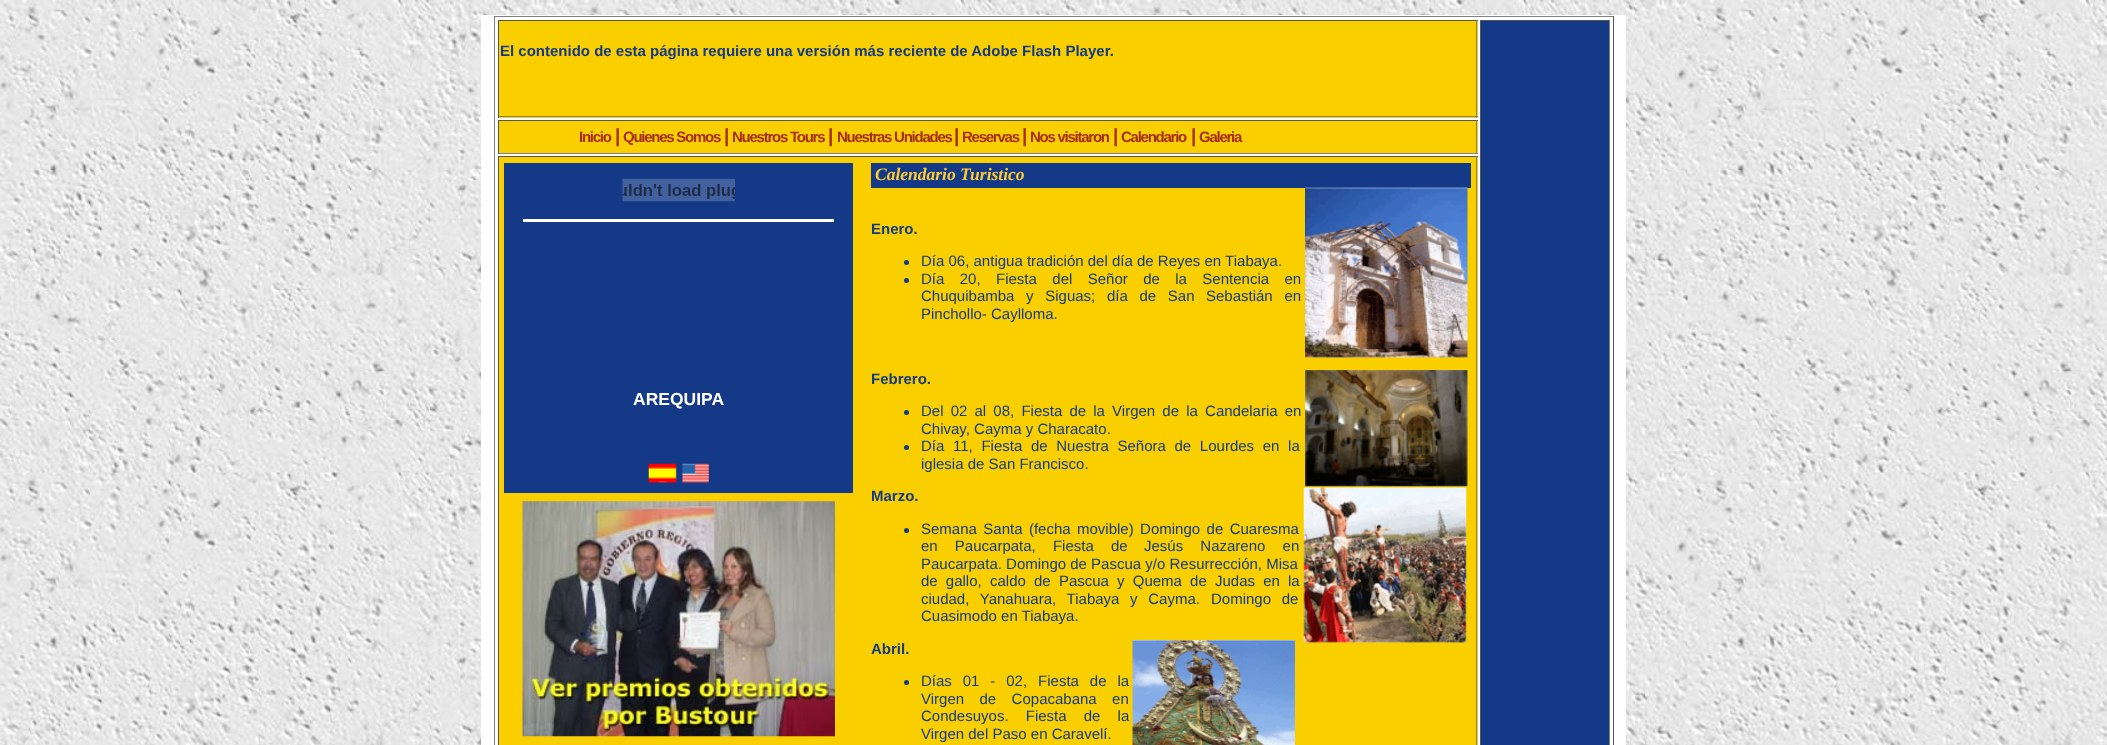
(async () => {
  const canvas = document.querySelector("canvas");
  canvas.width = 2107;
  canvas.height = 745;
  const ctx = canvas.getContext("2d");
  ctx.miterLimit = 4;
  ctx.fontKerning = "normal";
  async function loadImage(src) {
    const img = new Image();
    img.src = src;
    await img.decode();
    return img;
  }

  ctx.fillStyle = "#ffffff";
  ctx.fillRect(0, 0, 2107, 745);
  ctx.drawImage(await loadImage("img/1.png"), 0, 0, 2107, 745);
  for (const [x, y, w, h, color] of [
    [481, 15, 1145, 730, "#ffffff"],
    [494, 16, 1120, 1, "#808080"],
    [1613, 16, 1, 729, "#555555"],
    [494, 16, 1, 729, "#808080"],
    [499, 21, 979, 97, "#f9cf00"],
    [498, 20, 980, 1, "#555555"],
    [1476, 20, 1, 98, "#808080"],
    [498, 116, 980, 1, "#808080"],
    [498, 20, 1, 98, "#555555"],
    [1481, 21, 128, 724, "#143987"],
    [1480, 20, 130, 1, "#555555"],
    [1609, 20, 1, 725, "#808080"],
    [1480, 20, 1, 725, "#555555"],
    [499, 121, 979, 32, "#f9cf00"],
    [498, 120, 980, 1, "#555555"],
    [1476, 120, 1, 34, "#808080"],
    [498, 153, 980, 1, "#808080"],
    [498, 120, 1, 34, "#555555"],
    [499, 157, 979, 588, "#f9cf00"],
    [498, 156, 980, 1, "#555555"],
    [1476, 156, 1, 589, "#808080"],
    [498, 156, 1, 589, "#555555"],
    [504, 163, 349, 330, "#143987"],
  ]) {
    ctx.fillStyle = color;
    ctx.fillRect(x, y, w, h);
  }
  ctx.drawImage(await loadImage("img/2.png"), 622, 178, 113, 24);
  ctx.fillStyle = "#ffffff";
  ctx.fillRect(523, 219, 311, 3);
  ctx.drawImage(await loadImage("img/3.png"), 648, 463, 29, 20);
  ctx.drawImage(await loadImage("img/4.png"), 682, 463, 27, 20);
  ctx.drawImage(await loadImage("img/5.png"), 522, 501, 313, 236);
  ctx.fillStyle = "#143987";
  ctx.fillRect(871, 163, 600, 25);
  ctx.drawImage(await loadImage("img/6.png"), 1305, 187, 163, 171);
  ctx.beginPath();
  ctx.arc(906.5, 262.5, 2.5, 0, Math.PI * 2);
  ctx.fill();
  ctx.beginPath();
  ctx.arc(906.5, 280.5, 2.5, 0, Math.PI * 2);
  ctx.fill();
  ctx.drawImage(await loadImage("img/7.png"), 1305, 370, 163, 117);
  ctx.beginPath();
  ctx.arc(906.5, 412.5, 2.5, 0, Math.PI * 2);
  ctx.fill();
  ctx.beginPath();
  ctx.arc(906.5, 447.5, 2.5, 0, Math.PI * 2);
  ctx.fill();
  ctx.drawImage(await loadImage("img/8.png"), 1303, 487, 164, 156);
  ctx.beginPath();
  ctx.arc(906.5, 530.5, 2.5, 0, Math.PI * 2);
  ctx.fill();
  ctx.drawImage(await loadImage("img/9.png"), 1132, 640, 163, 105);
  ctx.beginPath();
  ctx.arc(906.5, 682.5, 2.5, 0, Math.PI * 2);
  ctx.fill();
  ctx.font = "bold 15px Liberation Sans";
  ctx.fillText("El contenido de esta página requiere una versión más reciente de Adobe Flash Player.", 500, 56);
  ctx.letterSpacing = "-1.25px";
  ctx.fillStyle = "#a62d0f";
  ctx.fillText("Inicio", 579, 142);
  ctx.font = "bold 19px Liberation Sans";
  ctx.fillText("|", 615, 142);
  ctx.font = "bold 15px Liberation Sans";
  ctx.fillText("Quienes Somos", 623, 142);
  ctx.font = "bold 19px Liberation Sans";
  ctx.fillText("|", 724, 142);
  ctx.font = "bold 15px Liberation Sans";
  ctx.fillText("Nuestros Tours", 732, 142);
  ctx.font = "bold 19px Liberation Sans";
  ctx.fillText("|", 828, 142);
  ctx.font = "bold 15px Liberation Sans";
  ctx.fillText("Nuestras Unidades", 837, 142);
  ctx.font = "bold 19px Liberation Sans";
  ctx.fillText("|", 954, 142);
  ctx.font = "bold 15px Liberation Sans";
  ctx.fillText("Reservas", 962, 142);
  ctx.font = "bold 19px Liberation Sans";
  ctx.fillText("|", 1022, 142);
  ctx.font = "bold 15px Liberation Sans";
  ctx.fillText("Nos visitaron", 1030, 142);
  ctx.font = "bold 19px Liberation Sans";
  ctx.fillText("|", 1113, 142);
  ctx.font = "bold 15px Liberation Sans";
  ctx.fillText("Calendario", 1121, 142);
  ctx.font = "bold 19px Liberation Sans";
  ctx.fillText("|", 1191, 142);
  ctx.font = "bold 15px Liberation Sans";
  ctx.fillText("Galeria", 1199, 142);
  ctx.letterSpacing = "0px";
  ctx.font = "bold 17.5px Liberation Sans";
  ctx.fillStyle = "#ffffff";
  ctx.fillText("AREQUIPA", 633, 405);
  ctx.font = "italic bold 17.5px Liberation Serif";
  ctx.fillStyle = "#ffcc33";
  ctx.fillText("Calendario Turistico", 875, 180);
  ctx.font = "bold 15px Liberation Sans";
  ctx.fillStyle = "#143987";
  ctx.fillText("Enero.", 871, 234);
  ctx.font = "15px Liberation Sans";
  ctx.fillText("Día 06, antigua tradición del día de Reyes en Tiabaya.", 921, 266);
  ctx.wordSpacing = "11.25px";
  ctx.fillText("Día 20, Fiesta del Señor de la Sentencia en", 921, 284);
  ctx.wordSpacing = "7.5px";
  ctx.fillText("Chuquibamba y Siguas; día de San", 921, 301);
  ctx.fillText("Sebastián en", 1206, 301);
  ctx.wordSpacing = "0px";
  ctx.fillText("Pinchollo- Caylloma.", 921, 319);
  ctx.font = "bold 15px Liberation Sans";
  ctx.fillText("Febrero.", 871, 384);
  ctx.wordSpacing = "3px";
  ctx.font = "15px Liberation Sans";
  ctx.fillText("Del 02 al 08, Fiesta de la Virgen de la Candelaria en", 921, 416);
  ctx.wordSpacing = "0px";
  ctx.fillText("Chivay, Cayma y Characato.", 921, 434);
  ctx.wordSpacing = "4.5px";
  ctx.fillText("Día 11, Fiesta de Nuestra Señora de Lourdes en la", 921, 451);
  ctx.wordSpacing = "0px";
  ctx.fillText("iglesia de San Francisco.", 921, 469);
  ctx.font = "bold 15px Liberation Sans";
  ctx.fillText("Marzo.", 871, 501);
  ctx.wordSpacing = "2.25px";
  ctx.font = "15px Liberation Sans";
  ctx.fillText("Semana Santa (fecha movible) Domingo de Cuaresma", 921, 534);
  ctx.wordSpacing = "13px";
  ctx.fillText("en Paucarpata, Fiesta de", 921, 551);
  ctx.fillText("Jesús Nazareno en", 1144, 551);
  ctx.wordSpacing = "0px";
  ctx.fillText("Paucarpata. Domingo de Pascua y/o Resurrección, Misa", 921, 569);
  ctx.wordSpacing = "4px";
  ctx.fillText("de gallo,", 921, 586);
  ctx.fillText("caldo de Pascua y Quema de Judas en la", 990, 586);
  ctx.wordSpacing = "6.5px";
  ctx.fillText("ciudad, Yanahuara, Tiabaya y Cayma.", 921, 604);
  ctx.fillText("Domingo de", 1211, 604);
  ctx.wordSpacing = "0px";
  ctx.fillText("Cuasimodo en Tiabaya.", 921, 621);
  ctx.font = "bold 15px Liberation Sans";
  ctx.fillText("Abril.", 871, 654);
  ctx.wordSpacing = "6.75px";
  ctx.font = "15px Liberation Sans";
  ctx.fillText("Días 01 - 02, Fiesta de la", 921, 686);
  ctx.wordSpacing = "11.25px";
  ctx.fillText("Virgen de Copacabana en", 921, 704);
  ctx.wordSpacing = "13px";
  ctx.fillText("Condesuyos. Fiesta de la", 921, 721);
  ctx.wordSpacing = "0px";
  ctx.fillText("Virgen del Paso en Caravelí.", 921, 739);
})();
